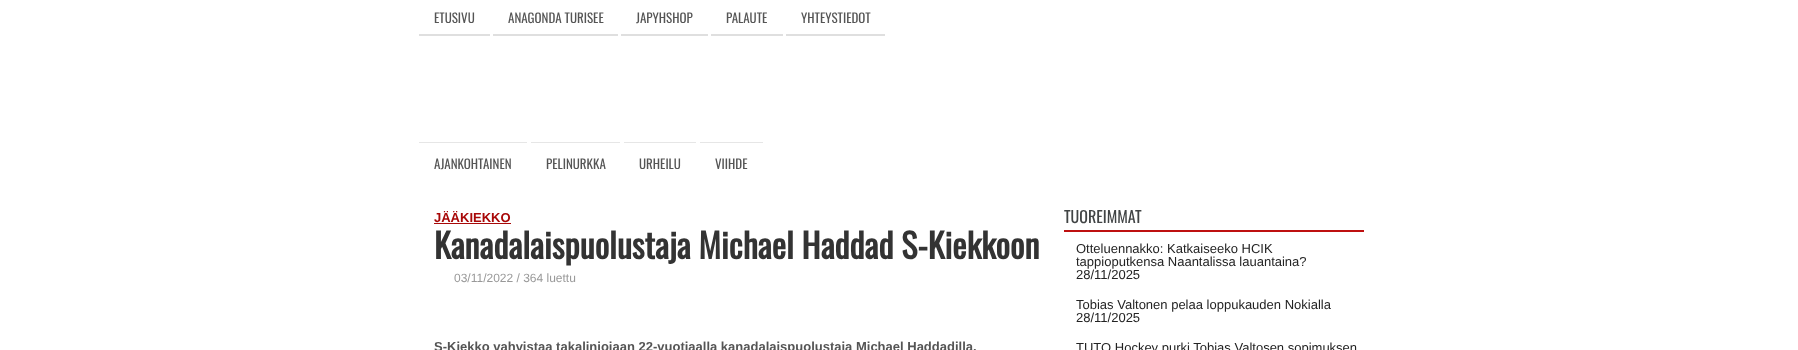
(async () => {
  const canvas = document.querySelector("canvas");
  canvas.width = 1798;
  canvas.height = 350;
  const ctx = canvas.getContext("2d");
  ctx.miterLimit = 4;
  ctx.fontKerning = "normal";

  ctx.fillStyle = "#ffffff";
  ctx.fillRect(0, 0, 1798, 350);
  for (const [x, y, w, h, color] of [
    [419, 34, 71, 2, "#dfdfdf"],
    [493, 34, 125, 2, "#dfdfdf"],
    [621, 34, 87, 2, "#dfdfdf"],
    [711, 34, 72, 2, "#dfdfdf"],
    [786, 34, 99, 2, "#dfdfdf"],
    [419, 142, 108, 1, "#e6e6e6"],
    [531, 142, 89, 1, "#e6e6e6"],
    [624, 142, 72, 1, "#e6e6e6"],
    [700, 142, 63, 1, "#e6e6e6"],
    [434, 223, 77, 1, "#a80808"],
    [1064, 230, 300, 2, "#be1010"],
  ]) {
    ctx.fillStyle = color;
    ctx.fillRect(x, y, w, h);
  }
  ctx.font = "13px Oswald";
  ctx.fillStyle = "#555555";
  for (const [text, x, y] of [
    ["ETUSIVU", 434, 23],
    ["ANAGONDA TURISEE", 508, 23],
    ["JAPYHSHOP", 636, 23],
    ["PALAUTE", 726, 23],
    ["YHTEYSTIEDOT", 801, 23],
    ["AJANKOHTAINEN", 434, 169],
    ["PELINURKKA", 546, 169],
    ["URHEILU", 639, 169],
    ["VIIHDE", 715, 169],
  ]) {
    ctx.fillText(text, x, y);
  }
  ctx.font = "bold 13px Liberation Sans";
  ctx.fillStyle = "#a80808";
  ctx.fillText("JÄÄKIEKKO", 434, 222);
  ctx.font = "bold 34px Oswald";
  ctx.fillStyle = "#333333";
  ctx.fillText("Kanadalaispuolustaja Michael Haddad S-Kiekkoon", 434, 259);
  ctx.font = "12px Liberation Sans";
  ctx.fillStyle = "#999999";
  ctx.fillText("03/11/2022 / 364 luettu", 454, 282);
  ctx.font = "bold 13px Liberation Sans";
  ctx.fillStyle = "#555555";
  ctx.fillText("S-Kiekko vahvistaa takalinjojaan 22-vuotiaalla kanadalaispuolustaja Michael Haddadilla.", 434, 351);
  ctx.font = "16px Oswald";
  ctx.fillStyle = "#414445";
  ctx.fillText("TUOREIMMAT", 1064, 223);
  ctx.font = "13px Liberation Sans";
  ctx.fillStyle = "#232323";
  for (const [text, x, y] of [
    ["Otteluennakko: Katkaiseeko HCIK", 1076, 253],
    ["tappioputkensa Naantalissa lauantaina?", 1076, 266],
    ["28/11/2025", 1076, 279],
    ["Tobias Valtonen pelaa loppukauden Nokialla", 1076, 309],
    ["28/11/2025", 1076, 322],
    ["TUTO Hockey purki Tobias Valtosen sopimuksen", 1076, 352],
  ]) {
    ctx.fillText(text, x, y);
  }
})();
